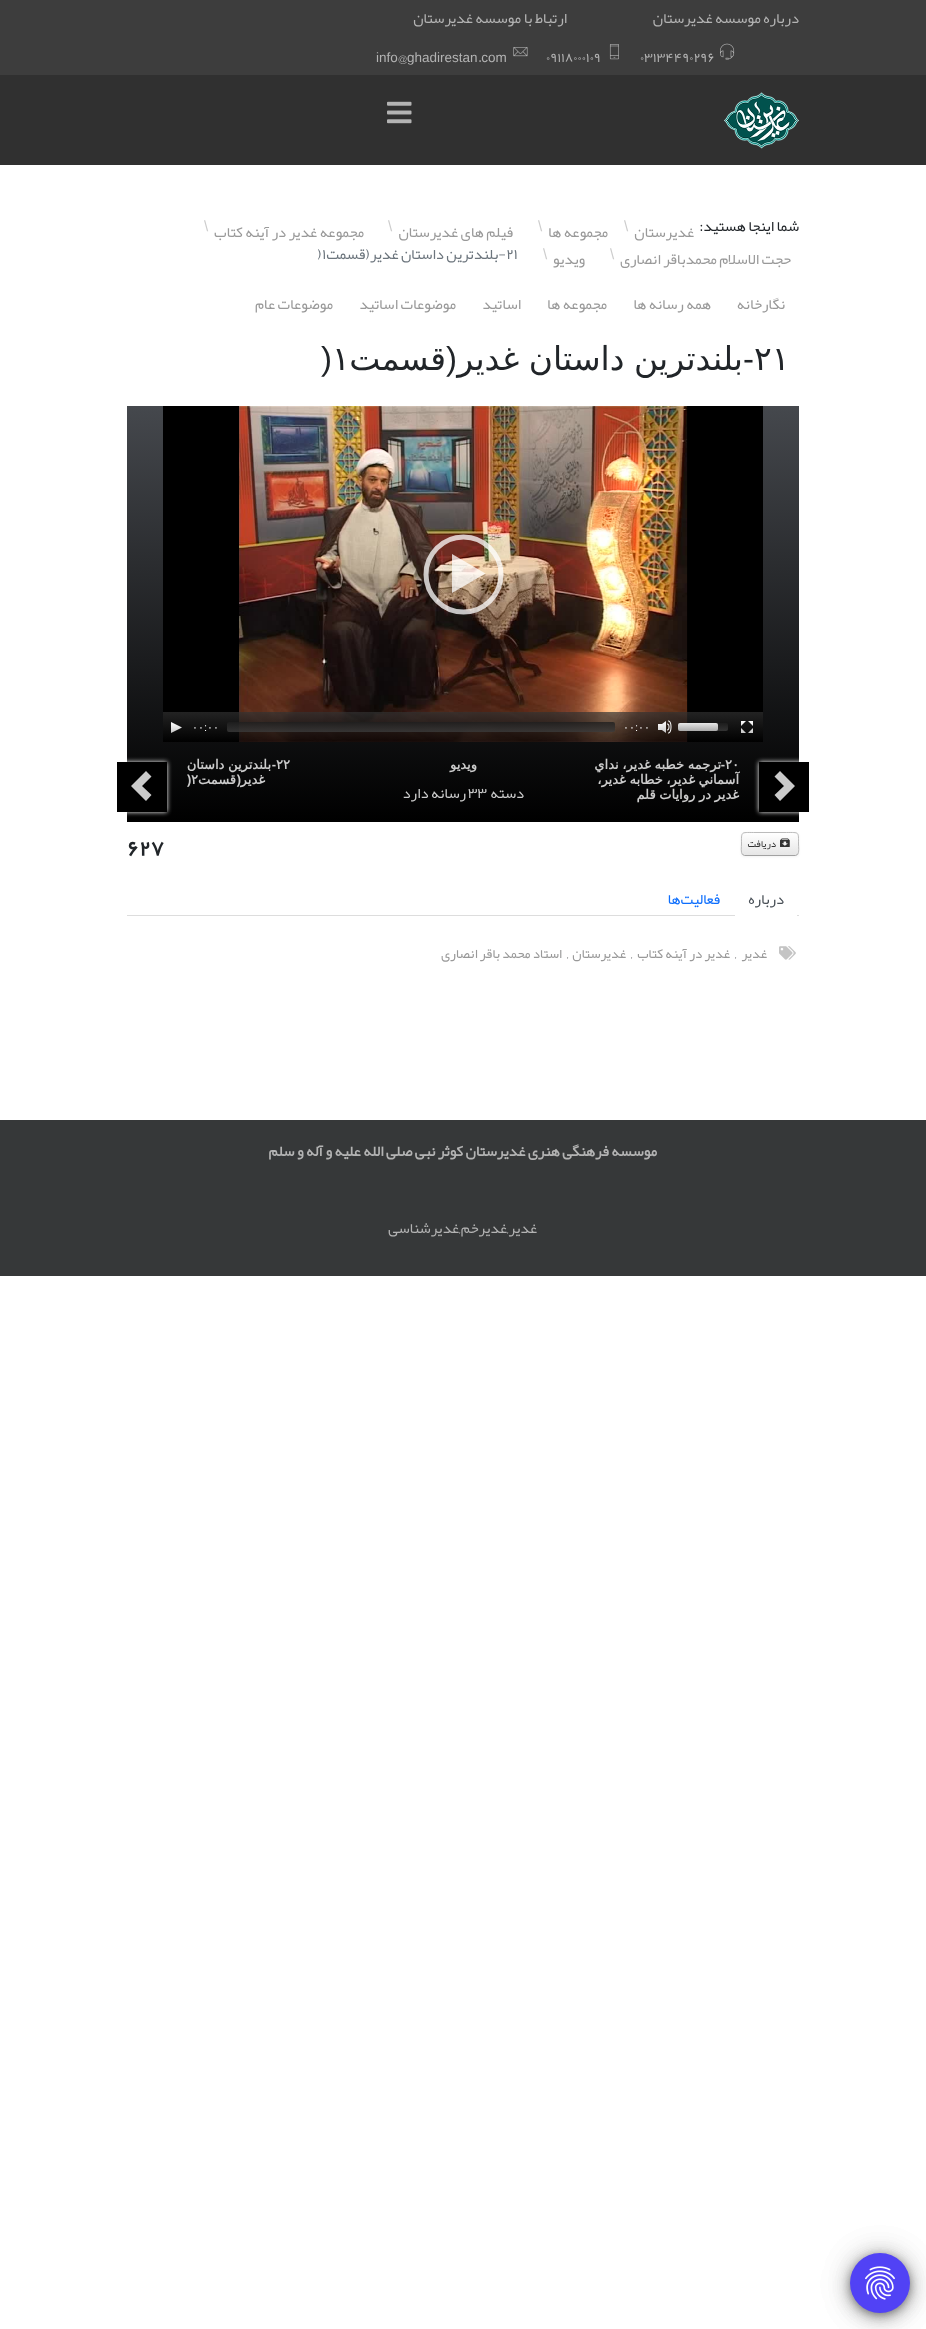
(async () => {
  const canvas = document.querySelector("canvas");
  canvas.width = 926;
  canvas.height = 2329;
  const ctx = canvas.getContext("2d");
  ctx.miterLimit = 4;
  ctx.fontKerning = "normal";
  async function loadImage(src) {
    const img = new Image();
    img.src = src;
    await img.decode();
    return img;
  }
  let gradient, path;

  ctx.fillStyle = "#ffffff";
  ctx.fillRect(0, 0, 926, 2329);
  ctx.fillStyle = "#3d3d3d";
  ctx.fillRect(0, 0, 926, 75);
  ctx.fillStyle = "rgba(0, 0, 0, 0.2)";
  ctx.filter = "blur(4.5px)";
  ctx.beginPath();
  ctx.roundRect(851, 2256, 58, 58, 29);
  ctx.fill();
  ctx.filter = "none";
  ctx.fillStyle = "rgba(0, 0, 0, 0.12)";
  ctx.filter = "blur(16px)";
  ctx.beginPath();
  ctx.roundRect(850, 2254, 60, 60, 30);
  ctx.fill();
  ctx.filter = "none";
  ctx.fillStyle = "rgba(0, 0, 0, 0.14)";
  ctx.filter = "blur(8.5px)";
  ctx.beginPath();
  ctx.roundRect(850, 2257, 60, 60, 30);
  ctx.fill();
  ctx.filter = "none";
  ctx.fillStyle = "rgba(0, 0, 0, 0.2)";
  ctx.filter = "blur(4.5px)";
  ctx.beginPath();
  ctx.roundRect(851, 2256, 58, 58, 29);
  ctx.fill();
  ctx.filter = "none";
  ctx.fillStyle = "rgba(0, 0, 0, 0.12)";
  ctx.filter = "blur(16px)";
  ctx.beginPath();
  ctx.roundRect(850, 2254, 60, 60, 30);
  ctx.fill();
  ctx.filter = "none";
  ctx.fillStyle = "rgba(0, 0, 0, 0.14)";
  ctx.filter = "blur(8.5px)";
  ctx.beginPath();
  ctx.roundRect(850, 2257, 60, 60, 30);
  ctx.fill();
  ctx.filter = "none";
  ctx.fillStyle = "#5142f5";
  ctx.beginPath();
  ctx.arc(880, 2283, 30, 0, Math.PI * 2);
  ctx.fill();
  ctx.drawImage(await loadImage("img/1.png"), 865, 2266, 30, 34);
  ctx.drawImage(await loadImage("img/2.png"), 720, 43, 15, 17);
  ctx.drawImage(await loadImage("img/3.png"), 609, 44, 10, 16);
  ctx.drawImage(await loadImage("img/4.png"), 513, 47, 15, 10);
  ctx.fillStyle = "#303030";
  ctx.fillRect(0, 75, 926, 90);
  ctx.drawImage(await loadImage("img/5.png"), 724, 92, 75, 57);
  ctx.drawImage(await loadImage("img/6.png"), 387, 101, 25, 23);
  gradient = ctx.createLinearGradient(463, 406, 463, 822);
  gradient.addColorStop(0, "#45484d");
  gradient.addColorStop(1, "#000000");
  ctx.fillStyle = gradient;
  ctx.fillRect(127, 406, 672, 416);
  ctx.fillStyle = "#000000";
  ctx.fillRect(163, 406, 600, 336);
  ctx.drawImage(await loadImage("img/7.png"), 239, 406, 1, 336);
  ctx.drawImage(await loadImage("img/8.png"), 239, 406, 449, 336);
  ctx.fillStyle = "rgba(255, 255, 255, 0.75)";
  path = new Path2D("M485.5 573.5L452 593V554Z");
  ctx.fill(path);
  path = new Path2D("M426 574.5C426 554 443 537 463.5 537C484 537 501 554 501 574.5C501 595 484 612 463.5 612C443 612 426 595 426 574.5Z");
  ctx.strokeStyle = "rgba(255, 255, 255, 0.75)";
  ctx.lineWidth = 5;
  ctx.stroke(path);
  gradient = ctx.createLinearGradient(463, 712, 463, 742);
  gradient.addColorStop(0, "rgba(50, 50, 50, 0.7)");
  gradient.addColorStop(1, "rgba(0, 0, 0, 0.7)");
  ctx.fillStyle = gradient;
  ctx.fillRect(163, 712, 600, 30);
  ctx.drawImage(await loadImage("img/9.png"), 741, 721, 12, 12);
  gradient = ctx.createLinearGradient(703, 723, 703, 731);
  gradient.addColorStop(0, "rgba(30, 30, 30, 0.8)");
  gradient.addColorStop(1, "rgba(60, 60, 60, 0.8)");
  ctx.fillStyle = gradient;
  ctx.beginPath();
  ctx.roundRect(678, 723, 50, 8, 2);
  ctx.fill();
  gradient = ctx.createLinearGradient(698, 723, 698, 731);
  gradient.addColorStop(0, "rgba(255, 255, 255, 0.9)");
  gradient.addColorStop(1, "rgba(200, 200, 200, 0.8)");
  ctx.fillStyle = gradient;
  ctx.beginPath();
  ctx.roundRect(678, 723, 40, 8, 2);
  ctx.fill();
  ctx.drawImage(await loadImage("img/10.png"), 658, 720, 14, 14);
  gradient = ctx.createLinearGradient(421, 722, 421, 732);
  gradient.addColorStop(0, "rgba(30, 30, 30, 0.8)");
  gradient.addColorStop(1, "rgba(60, 60, 60, 0.8)");
  ctx.fillStyle = gradient;
  ctx.beginPath();
  ctx.roundRect(227, 722, 388, 10, 2);
  ctx.fill();
  ctx.drawImage(await loadImage("img/11.png"), 171, 722, 11, 11);
  ctx.fillStyle = "#ffffff";
  ctx.filter = "blur(2.5px)";
  ctx.beginPath();
  ctx.rect(759, 762, 50, 50);
  ctx.fill();
  ctx.filter = "none";
  ctx.fillStyle = "#000000";
  ctx.fillRect(759, 762, 50, 50);
  ctx.fillStyle = "#cacaca";
  path = new Path2D("M780 771L795 786L780 801L774.5 795L784 786L774.5 776.5Z");
  ctx.fill(path);
  ctx.fillStyle = "#ffffff";
  ctx.filter = "blur(2.5px)";
  ctx.beginPath();
  ctx.rect(117, 762, 50, 50);
  ctx.fill();
  ctx.filter = "none";
  ctx.fillStyle = "#000000";
  ctx.fillRect(117, 762, 50, 50);
  ctx.fillStyle = "#cacaca";
  path = new Path2D("M146 801L131 786L146 771L151.5 776.5L142 786L151.5 795Z");
  ctx.fill(path);
  ctx.fillStyle = "rgba(0, 0, 0, 0.05)";
  ctx.filter = "blur(1px)";
  ctx.beginPath();
  ctx.roundRect(741, 833, 58, 24, 4);
  ctx.fill();
  ctx.filter = "none";
  ctx.fillStyle = "#f5f5f5";
  ctx.beginPath();
  ctx.roundRect(741, 832, 58, 24, 4);
  ctx.fill();
  ctx.save();
  ctx.beginPath();
  ctx.roundRect(741, 832, 58, 24, 4);
  ctx.clip();
  gradient = ctx.createLinearGradient(770, 833, 770, 855);
  gradient.addColorStop(0, "#ffffff");
  gradient.addColorStop(1, "#e6e6e6");
  ctx.fillStyle = gradient;
  ctx.fillRect(741, 833, 58, 22);
  ctx.restore();
  ctx.fillStyle = "#fefefe";
  path = new Path2D("M745 834H795C797 834 798 835 798 837C798 831 791 833 787 833H753C749 833 742 831 742 837C742 835 743 834 745 834Z");
  ctx.fill(path);
  path = new Path2D("M797.5 854.5L795.5 855.5H744.5L742.5 854.5");
  ctx.strokeStyle = "#a2a2a2";
  ctx.lineWidth = 1;
  ctx.stroke(path);
  path = new Path2D("M742.5 854.5C740.5 852.5 741.5 846.5 741.5 844C741.5 831.5 740.5 832.5 753.5 832.5H786.5C799.5 832.5 798.5 831.5 798.5 844C798.5 846.5 799.5 852.5 797.5 854.5");
  ctx.strokeStyle = "#bbbbbb";
  ctx.stroke(path);
  ctx.drawImage(await loadImage("img/12.png"), 780, 838, 10, 9);
  ctx.fillStyle = "#dddddd";
  ctx.fillRect(127, 915, 672, 1);
  ctx.fillStyle = "#ffffff";
  ctx.beginPath();
  ctx.roundRect(735, 881, 62, 36, [4, 4, 0, 0]);
  ctx.fill();
  ctx.drawImage(await loadImage("img/13.png"), 779, 946, 17, 14);
  ctx.fillStyle = "#363839";
  ctx.fillRect(0, 1120, 926, 156);
  ctx.direction = "rtl";
  ctx.font = "15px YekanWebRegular";
  ctx.fillStyle = "#b3b3b3";
  ctx.fillText("درباره موسسه غدیرستان", 799, 23);
  ctx.fillText("ارتباط با موسسه غدیرستان", 567, 23);
  ctx.direction = "ltr";
  ctx.font = "13.5px YekanWebRegular";
  ctx.fillText("۰٣١٣۴۴٩۰٢٩۶", 640, 62);
  ctx.fillText("۰٩١١٨۰۰۰١۰٩", 546, 62);
  ctx.font = "13.5px Liberation Sans";
  ctx.fillText("ghadirestan com", 407, 62);
  ctx.font = "13.5px YekanWebRegular";
  ctx.fillText("@", 398, 62);
  ctx.font = "13.5px Liberation Sans";
  ctx.fillText("info", 376, 62);
  ctx.font = "13.5px YekanWebRegular";
  ctx.fillText(".", 478, 62);
  ctx.direction = "rtl";
  ctx.font = "15px YekanWebRegular";
  ctx.fillStyle = "#212529";
  ctx.fillText("شما اینجا هستید:", 799, 231);
  ctx.direction = "ltr";
  ctx.font = "15px Liberation Sans";
  ctx.fillStyle = "#cccccc";
  ctx.fillText("\\", 624, 231);
  ctx.direction = "rtl";
  ctx.font = "15px YekanWebRegular";
  ctx.fillStyle = "#999999";
  ctx.fillText("غدیرستان", 694, 237);
  ctx.direction = "ltr";
  ctx.font = "15px Liberation Sans";
  ctx.fillStyle = "#cccccc";
  ctx.fillText("\\", 538, 231);
  ctx.direction = "rtl";
  ctx.font = "15px YekanWebRegular";
  ctx.fillStyle = "#999999";
  ctx.fillText("مجموعه ها", 608, 237);
  ctx.fillText("فیلم های غدیرستان", 513, 237);
  ctx.direction = "ltr";
  ctx.font = "15px Liberation Sans";
  ctx.fillStyle = "#cccccc";
  ctx.fillText("\\", 388, 231);
  ctx.direction = "rtl";
  ctx.font = "15px YekanWebRegular";
  ctx.fillStyle = "#999999";
  ctx.fillText("مجموعه غدیر در آینه کتاب", 364, 237);
  ctx.direction = "ltr";
  ctx.font = "15px Liberation Sans";
  ctx.fillStyle = "#cccccc";
  ctx.fillText("\\", 204, 231);
  ctx.direction = "rtl";
  ctx.font = "15px YekanWebRegular";
  ctx.fillStyle = "#999999";
  ctx.fillText("حجت الاسلام محمدباقر انصاری", 791, 264);
  ctx.direction = "ltr";
  ctx.font = "15px Liberation Sans";
  ctx.fillStyle = "#cccccc";
  ctx.fillText("\\", 610, 259);
  ctx.fillText("\\", 543, 259);
  ctx.direction = "rtl";
  ctx.font = "15px YekanWebRegular";
  ctx.fillStyle = "#999999";
  ctx.fillText("ویدیو", 585, 264);
  ctx.direction = "ltr";
  ctx.fillStyle = "#6c757d";
  ctx.fillText("٢١", 506, 259);
  ctx.direction = "rtl";
  ctx.fillText("-بلندترين داستان غدير(قسمت", 506, 259);
  ctx.direction = "ltr";
  ctx.fillText("١", 322, 259);
  ctx.fillText(")", 317, 259);
  ctx.direction = "rtl";
  ctx.fillStyle = "#999999";
  for (const [text, x, y] of [
    ["نگارخانه", 785, 309],
    ["همه رسانه ها", 711, 309],
    ["مجموعه ها", 607, 309],
    ["اساتيد", 521, 309],
    ["موضوعات اساتيد", 456, 309],
    ["موضوعات عام", 333, 309],
  ]) {
    ctx.fillText(text, x, y);
  }
  ctx.direction = "ltr";
  ctx.font = "33px DejaVu Sans";
  ctx.fillStyle = "#212529";
  ctx.fillText("٢١", 754, 370);
  ctx.direction = "rtl";
  ctx.font = "33px Liberation Sans";
  ctx.fillText("-", 754, 370);
  ctx.fillText("(", 457, 370);
  ctx.wordSpacing = "-1px";
  ctx.font = "33px DejaVu Sans";
  ctx.fillText("بلندترين داستان غدير", 743, 370);
  ctx.wordSpacing = "0px";
  ctx.fillText("قسمت", 446, 370);
  ctx.direction = "ltr";
  ctx.fillText("١", 332, 370);
  ctx.font = "33px Liberation Sans";
  ctx.fillText(")", 321, 370);
  ctx.font = "11px DejaVu Sans";
  ctx.fillStyle = "#ffffff";
  ctx.fillText("۰۰", 638, 731);
  ctx.font = "11px Liberation Sans";
  ctx.fillText(":", 635, 731);
  ctx.font = "11px DejaVu Sans";
  ctx.fillText("۰۰", 623, 731);
  ctx.fillText("۰۰", 207, 731);
  ctx.font = "11px Liberation Sans";
  ctx.fillText(":", 204, 731);
  ctx.font = "11px DejaVu Sans";
  ctx.fillText("۰۰", 192, 731);
  ctx.font = "bold 13px DejaVu Sans";
  ctx.fillStyle = "#cccccc";
  ctx.fillText("٢۰", 725, 769);
  ctx.wordSpacing = "-0.5px";
  ctx.direction = "rtl";
  ctx.fillText("ترجمه خطبه غدير، نداي", 721, 769);
  ctx.wordSpacing = "0px";
  ctx.font = "bold 13px Liberation Sans";
  ctx.fillText("-", 725, 769);
  ctx.wordSpacing = "-0.5px";
  ctx.font = "bold 13px DejaVu Sans";
  ctx.fillText("آسماني غدير، خطابه غدير،", 739, 784);
  ctx.fillText("غدير در روايات قلم", 739, 799);
  ctx.wordSpacing = "0px";
  ctx.fillText("ویدیو", 477, 769);
  ctx.font = "15px YekanWebRegular";
  ctx.fillText("دسته", 524, 798);
  ctx.direction = "ltr";
  ctx.fillText("٣٣", 468, 798);
  ctx.direction = "rtl";
  ctx.fillText("رسانه دارد", 466, 798);
  ctx.direction = "ltr";
  ctx.font = "bold 13px DejaVu Sans";
  ctx.fillText("٢٢", 276, 769);
  ctx.direction = "rtl";
  ctx.font = "bold 13px Liberation Sans";
  ctx.fillText("-", 276, 769);
  ctx.wordSpacing = "-0.5px";
  ctx.font = "bold 13px DejaVu Sans";
  ctx.fillText("بلندترين داستان", 271, 769);
  ctx.wordSpacing = "0px";
  ctx.font = "bold 13px Liberation Sans";
  ctx.fillText("(", 241, 784);
  ctx.font = "bold 13px DejaVu Sans";
  ctx.fillText("غدير", 265, 784);
  ctx.fillText("قسمت", 236, 784);
  ctx.direction = "ltr";
  ctx.fillText("٢", 191, 784);
  ctx.font = "bold 13px Liberation Sans";
  ctx.fillText(")", 187, 784);
  ctx.direction = "rtl";
  ctx.font = "10px YekanWebRegular";
  ctx.fillStyle = "#333333";
  ctx.fillText("دریافت", 776, 847);
  ctx.direction = "ltr";
  ctx.font = "bold 22px YekanWebRegular";
  ctx.fillStyle = "#212529";
  ctx.fillText("۶٢٧", 127, 856);
  ctx.direction = "rtl";
  ctx.font = "15px YekanWebRegular";
  ctx.fillStyle = "#495057";
  ctx.fillText("درباره", 784, 904);
  ctx.fillStyle = "#0d6efd";
  ctx.fillText("فعالیت‌ها", 720, 904);
  ctx.font = "13.5px YekanWebRegular";
  ctx.fillStyle = "#999999";
  ctx.fillText("غدیر", 767, 958);
  ctx.direction = "ltr";
  ctx.fillStyle = "#212529";
  ctx.fillText(",", 735, 958);
  ctx.direction = "rtl";
  ctx.fillStyle = "#999999";
  ctx.fillText("غدیر در آینه کتاب", 730, 958);
  ctx.direction = "ltr";
  ctx.fillStyle = "#212529";
  ctx.fillText(",", 631, 958);
  ctx.direction = "rtl";
  ctx.fillStyle = "#999999";
  ctx.fillText("غدیرستان", 626, 958);
  ctx.direction = "ltr";
  ctx.fillStyle = "#212529";
  ctx.fillText(",", 567, 958);
  ctx.direction = "rtl";
  ctx.fillStyle = "#999999";
  ctx.fillText("استاد محمد باقر انصاری", 562, 958);
  ctx.font = "bold 15px YekanWebRegular";
  ctx.fillStyle = "#b3b3b3";
  ctx.fillText("موسسه فرهنگی هنری غدیرستان کوثر نبی صلی الله علیه و آله و سلم", 657, 1156);
  ctx.font = "15px YekanWebRegular";
  ctx.fillText("غدیر,غدیرخم,غدیرشناسی", 537, 1233);
})();
